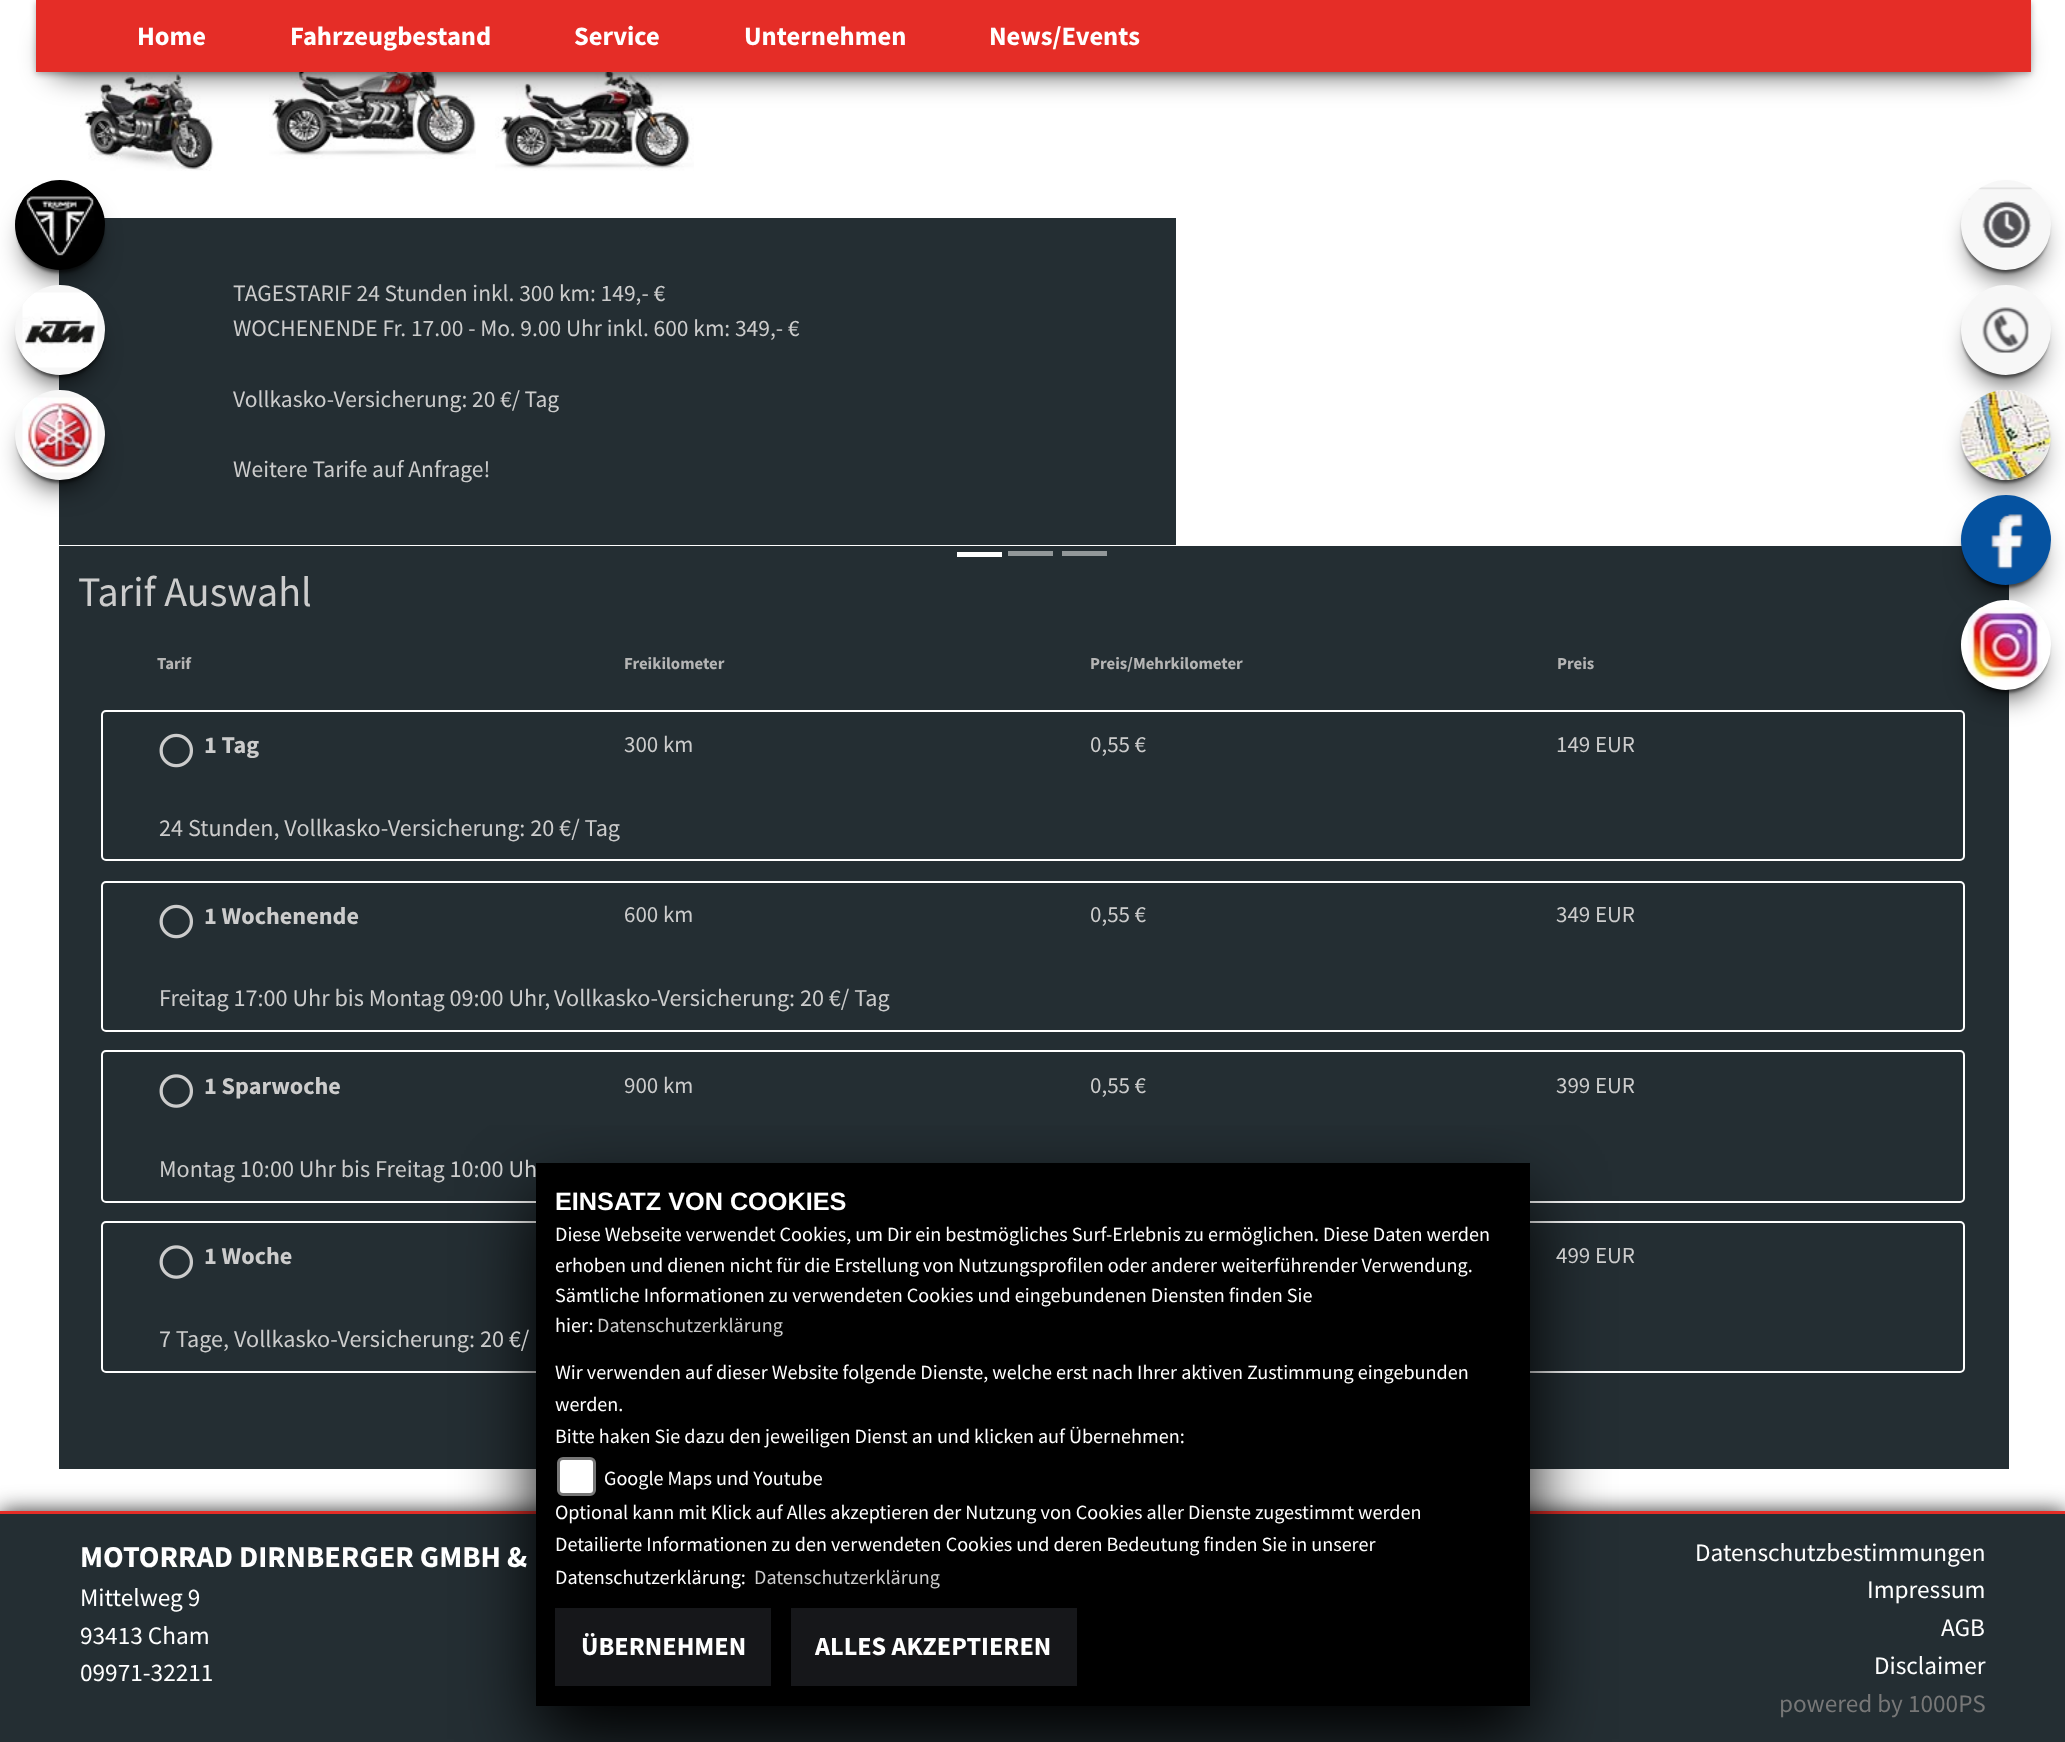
(async () => {
  const canvas = document.querySelector("canvas");
  canvas.width = 2065;
  canvas.height = 1742;
  const ctx = canvas.getContext("2d");
  ctx.miterLimit = 4;
  ctx.fontKerning = "normal";
  async function loadImage(src) {
    const img = new Image();
    img.src = src;
    await img.decode();
    return img;
  }

  ctx.fillStyle = "#ffffff";
  ctx.fillRect(0, 0, 2065, 1742);
  ctx.drawImage(await loadImage("img/4.png"), 80, 73, 138, 98);
  ctx.fillStyle = "#242e33";
  ctx.fillRect(59, 218, 1117, 327);
  ctx.fillStyle = "#000000";
  ctx.filter = "blur(15px)";
  ctx.beginPath();
  ctx.roundRect(30, 213, 60, 60, 30);
  ctx.fill();
  ctx.filter = "none";
  ctx.fillStyle = "rgba(0, 0, 0, 0.5)";
  ctx.filter = "blur(1.5px)";
  ctx.beginPath();
  ctx.roundRect(17, 186, 87, 87, 43.5);
  ctx.fill();
  ctx.filter = "none";
  ctx.fillStyle = "#000000";
  ctx.beginPath();
  ctx.arc(60, 225, 45, 0, Math.PI * 2);
  ctx.fill();
  ctx.drawImage(await loadImage("img/1.png"), 22, 187, 76, 76);
  ctx.filter = "blur(15px)";
  ctx.beginPath();
  ctx.roundRect(30, 318, 60, 60, 30);
  ctx.fill();
  ctx.filter = "none";
  ctx.fillStyle = "rgba(0, 0, 0, 0.5)";
  ctx.filter = "blur(1.5px)";
  ctx.beginPath();
  ctx.roundRect(17, 291, 87, 87, 43.5);
  ctx.fill();
  ctx.filter = "none";
  ctx.fillStyle = "#f7f7f7";
  ctx.beginPath();
  ctx.arc(60, 330, 45, 0, Math.PI * 2);
  ctx.fill();
  ctx.drawImage(await loadImage("img/2.png"), 22, 292, 76, 76);
  ctx.fillStyle = "#000000";
  ctx.filter = "blur(15px)";
  ctx.beginPath();
  ctx.roundRect(30, 423, 60, 60, 30);
  ctx.fill();
  ctx.filter = "none";
  ctx.fillStyle = "rgba(0, 0, 0, 0.5)";
  ctx.filter = "blur(1.5px)";
  ctx.beginPath();
  ctx.roundRect(17, 396, 87, 87, 43.5);
  ctx.fill();
  ctx.filter = "none";
  ctx.fillStyle = "#f7f7f7";
  ctx.beginPath();
  ctx.arc(60, 435, 45, 0, Math.PI * 2);
  ctx.fill();
  ctx.drawImage(await loadImage("img/3.png"), 22, 397, 76, 76);
  ctx.drawImage(await loadImage("img/5.png"), 269, 72, 207, 87);
  ctx.drawImage(await loadImage("img/6.png"), 495, 72, 199, 99);
  ctx.fillStyle = "rgba(0, 0, 0, 0.3)";
  ctx.filter = "blur(3px)";
  ctx.beginPath();
  ctx.rect(36, 2, 1995, 72);
  ctx.fill();
  ctx.filter = "none";
  ctx.fillStyle = "rgba(0, 0, 0, 0.8)";
  ctx.filter = "blur(15px)";
  ctx.beginPath();
  ctx.roundRect(51, 36, 1965, 36, 15);
  ctx.fill();
  ctx.filter = "none";
  for (const [x, y, w, h, color] of [
    [36, 0, 1995, 72, "#e52d27"],
    [59, 546, 1950, 923, "#242e33"],
    [957, 552, 45, 5, "#ffffff"],
    [1008, 551, 45, 5, "#929799"],
    [1062, 551, 45, 5, "#929799"],
  ]) {
    ctx.fillStyle = color;
    ctx.fillRect(x, y, w, h);
  }
  ctx.beginPath();
  ctx.roundRect(102, 711, 1862, 149, 4);
  ctx.strokeStyle = "#ffffff";
  ctx.lineWidth = 2;
  ctx.stroke();
  ctx.drawImage(await loadImage("img/7.png"), 159, 733, 34, 35);
  ctx.beginPath();
  ctx.roundRect(102, 882, 1862, 149, 4);
  ctx.stroke();
  ctx.drawImage(await loadImage("img/7.png"), 159, 904, 34, 35);
  ctx.beginPath();
  ctx.roundRect(102, 1051, 1862, 151, 4);
  ctx.stroke();
  ctx.drawImage(await loadImage("img/8.png"), 159, 1074, 34, 34);
  ctx.beginPath();
  ctx.roundRect(102, 1222, 1862, 150, 4);
  ctx.stroke();
  ctx.drawImage(await loadImage("img/8.png"), 159, 1245, 34, 34);
  ctx.fillStyle = "#333333";
  ctx.filter = "blur(11px)";
  ctx.beginPath();
  ctx.rect(0, 1511, 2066, 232);
  ctx.fill();
  ctx.filter = "none";
  ctx.fillStyle = "#242e33";
  ctx.fillRect(0, 1514, 2065, 228);
  ctx.fillStyle = "#e52d27";
  ctx.fillRect(0, 1511, 2065, 3);
  ctx.fillStyle = "#000000";
  ctx.filter = "blur(15px)";
  ctx.beginPath();
  ctx.roundRect(1976, 213, 60, 60, 30);
  ctx.fill();
  ctx.filter = "none";
  ctx.fillStyle = "rgba(0, 0, 0, 0.5)";
  ctx.filter = "blur(1.5px)";
  ctx.beginPath();
  ctx.roundRect(1962, 186, 87, 87, 43.5);
  ctx.fill();
  ctx.filter = "none";
  ctx.fillStyle = "#f7f7f7";
  ctx.beginPath();
  ctx.arc(2006, 225, 45, 0, Math.PI * 2);
  ctx.fill();
  ctx.drawImage(await loadImage("img/9.png"), 1968, 187, 64, 61);
  ctx.fillStyle = "#000000";
  ctx.filter = "blur(15px)";
  ctx.beginPath();
  ctx.roundRect(1976, 318, 60, 60, 30);
  ctx.fill();
  ctx.filter = "none";
  ctx.fillStyle = "rgba(0, 0, 0, 0.5)";
  ctx.filter = "blur(1.5px)";
  ctx.beginPath();
  ctx.roundRect(1962, 291, 87, 87, 43.5);
  ctx.fill();
  ctx.filter = "none";
  ctx.fillStyle = "#f7f7f7";
  ctx.beginPath();
  ctx.arc(2006, 330, 45, 0, Math.PI * 2);
  ctx.fill();
  ctx.drawImage(await loadImage("img/10.png"), 1982, 307, 47, 46);
  ctx.fillStyle = "#000000";
  ctx.filter = "blur(15px)";
  ctx.beginPath();
  ctx.roundRect(1976, 423, 60, 60, 30);
  ctx.fill();
  ctx.filter = "none";
  ctx.fillStyle = "rgba(0, 0, 0, 0.5)";
  ctx.filter = "blur(1.5px)";
  ctx.beginPath();
  ctx.roundRect(1962, 396, 87, 87, 43.5);
  ctx.fill();
  ctx.filter = "none";
  ctx.fillStyle = "#f7f7f7";
  ctx.beginPath();
  ctx.arc(2006, 435, 45, 0, Math.PI * 2);
  ctx.fill();
  ctx.drawImage(await loadImage("img/11.png"), 1960, 390, 91, 90);
  ctx.fillStyle = "#000000";
  ctx.filter = "blur(15px)";
  ctx.beginPath();
  ctx.roundRect(1976, 528, 60, 60, 30);
  ctx.fill();
  ctx.filter = "none";
  ctx.fillStyle = "rgba(0, 0, 0, 0.5)";
  ctx.filter = "blur(1.5px)";
  ctx.beginPath();
  ctx.roundRect(1962, 501, 87, 87, 43.5);
  ctx.fill();
  ctx.filter = "none";
  ctx.fillStyle = "#0552a0";
  ctx.beginPath();
  ctx.arc(2006, 540, 45, 0, Math.PI * 2);
  ctx.fill();
  ctx.drawImage(await loadImage("img/12.png"), 1991, 514, 32, 55);
  ctx.fillStyle = "#000000";
  ctx.filter = "blur(15px)";
  ctx.beginPath();
  ctx.roundRect(1976, 633, 60, 60, 30);
  ctx.fill();
  ctx.filter = "none";
  ctx.fillStyle = "rgba(0, 0, 0, 0.5)";
  ctx.filter = "blur(1.5px)";
  ctx.beginPath();
  ctx.roundRect(1962, 606, 87, 87, 43.5);
  ctx.fill();
  ctx.filter = "none";
  ctx.fillStyle = "#ffffff";
  ctx.beginPath();
  ctx.arc(2006, 645, 45, 0, Math.PI * 2);
  ctx.fill();
  ctx.drawImage(await loadImage("img/13.png"), 1967, 607, 76, 76);
  ctx.save();
  ctx.beginPath();
  ctx.rect(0, 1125, 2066, 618);
  ctx.clip();
  ctx.fillStyle = "#000000";
  ctx.filter = "blur(37.5px)";
  ctx.beginPath();
  ctx.rect(536, 1196, 994, 543);
  ctx.fill();
  ctx.filter = "none";
  ctx.restore();
  ctx.fillStyle = "#000000";
  ctx.fillRect(536, 1163, 994, 543);
  ctx.fillStyle = "#ffffff";
  ctx.beginPath();
  ctx.roundRect(558.5, 1458.5, 36, 36, 4.5);
  ctx.fill();
  ctx.strokeStyle = "#767676";
  ctx.lineWidth = 3;
  ctx.stroke();
  ctx.fillStyle = "#16171a";
  ctx.fillRect(555, 1608, 216, 78);
  ctx.fillRect(791, 1608, 286, 78);
  ctx.font = "bold 26.5px Source Sans Pro";
  ctx.fillStyle = "#ffffff";
  for (const [text, x, y] of [
    ["Home", 137, 45],
    ["Fahrzeugbestand", 290, 45],
    ["Service", 574, 45],
    ["Unternehmen", 744, 45],
    ["News/Events", 989, 45],
  ]) {
    ctx.fillText(text, x, y);
  }
  ctx.font = "23.5px Source Sans Pro";
  ctx.fillStyle = "#cccccc";
  for (const [text, x, y] of [
    ["TAGESTARIF 24 Stunden inkl. 300 km: 149,- €", 233, 301],
    ["WOCHENENDE Fr. 17.00 - Mo. 9.00 Uhr inkl. 600 km: 349,- €", 233, 336],
    ["Vollkasko-Versicherung: 20 €/ Tag", 233, 407],
    ["Weitere Tarife auf Anfrage!", 233, 477],
  ]) {
    ctx.fillText(text, x, y);
  }
  ctx.font = "42px Source Sans Pro";
  ctx.fillText("Tarif Auswahl", 78, 606);
  ctx.font = "bold 16.75px Source Sans Pro";
  ctx.fillStyle = "#b5b5b5";
  for (const [text, x, y] of [
    ["Tarif", 157, 669],
    ["Freikilometer", 624, 669],
    ["Preis/Mehrkilometer", 1090, 669],
    ["Preis", 1557, 669],
  ]) {
    ctx.fillText(text, x, y);
  }
  ctx.font = "bold 24.2px Source Sans Pro";
  ctx.fillStyle = "#cccccc";
  ctx.fillText("1 Tag", 204, 753);
  ctx.font = "23px Source Sans Pro";
  for (const [text, x, y] of [
    ["300 km", 624, 752],
    ["0,55 €", 1090, 752],
    ["149 EUR", 1556, 752],
  ]) {
    ctx.fillText(text, x, y);
  }
  ctx.font = "24.2px Source Sans Pro";
  ctx.fillText("24 Stunden, Vollkasko-Versicherung: 20 €/ Tag", 159, 836);
  ctx.font = "bold 24.2px Source Sans Pro";
  ctx.fillText("1 Wochenende", 204, 924);
  ctx.font = "23px Source Sans Pro";
  for (const [text, x, y] of [
    ["600 km", 624, 922],
    ["0,55 €", 1090, 922],
    ["349 EUR", 1556, 922],
  ]) {
    ctx.fillText(text, x, y);
  }
  ctx.font = "24.2px Source Sans Pro";
  ctx.fillText("Freitag 17:00 Uhr bis Montag 09:00 Uhr,", 159, 1006);
  ctx.fillText("Vollkasko-Versicherung: 20 €/ Tag", 554, 1006);
  ctx.font = "bold 24.2px Source Sans Pro";
  ctx.fillText("1 Sparwoche", 204, 1094);
  ctx.font = "23px Source Sans Pro";
  for (const [text, x, y] of [
    ["900 km", 624, 1093],
    ["0,55 €", 1090, 1093],
    ["399 EUR", 1556, 1093],
  ]) {
    ctx.fillText(text, x, y);
  }
  ctx.font = "24.2px Source Sans Pro";
  ctx.fillText("Montag 10:00 Uhr bis Freitag 10:00 Uh", 159, 1177);
  ctx.font = "bold 24.2px Source Sans Pro";
  ctx.fillText("1 Woche", 204, 1264);
  ctx.font = "23px Source Sans Pro";
  ctx.fillText("499 EUR", 1556, 1263);
  ctx.font = "24.2px Source Sans Pro";
  ctx.fillText("7 Tage, Vollkasko-Versicherung: 20 €/", 159, 1347);
  ctx.font = "bold 30.25px Source Sans Pro";
  ctx.fillStyle = "#ffffff";
  ctx.fillText("MOTORRAD DIRNBERGER GMBH &", 80, 1567);
  ctx.font = "25.25px Source Sans Pro";
  for (const [text, x, y] of [
    ["Mittelweg 9", 80, 1606],
    ["93413 Cham", 80, 1644],
    ["09971-32211", 80, 1681],
    ["Datenschutzbestimmungen", 1695, 1561],
    ["Impressum", 1867, 1598],
    ["AGB", 1941, 1636],
    ["Disclaimer", 1874, 1674],
  ]) {
    ctx.fillText(text, x, y);
  }
  ctx.fillStyle = "#777777";
  ctx.fillText("powered by 1000PS", 1779, 1712);
  ctx.font = "bold 25.25px Liberation Sans";
  ctx.fillStyle = "#ffffff";
  ctx.fillText("EINSATZ VON COOKIES", 555, 1210);
  ctx.font = "20.15px Source Sans Pro";
  for (const [text, x, y] of [
    ["Diese Webseite verwendet Cookies, um Dir ein bestmögliches Surf-Erlebnis zu ermöglichen. Diese Daten werden", 555, 1241],
    ["erhoben und dienen nicht für die Erstellung von Nutzungsprofilen oder anderer weiterführender Verwendung.", 555, 1272],
    ["Sämtliche Informationen zu verwendeten Cookies und eingebundenen Diensten finden Sie", 555, 1302],
    ["hier:", 555, 1332],
  ]) {
    ctx.fillText(text, x, y);
  }
  ctx.fillStyle = "#cccccc";
  ctx.fillText("Datenschutzerklärung", 597, 1332);
  ctx.fillStyle = "#ffffff";
  for (const [text, x, y] of [
    ["Wir verwenden auf dieser Website folgende Dienste, welche erst nach Ihrer aktiven Zustimmung eingebunden", 555, 1379],
    ["werden.", 555, 1411],
    ["Bitte haken Sie dazu den jeweiligen Dienst an und klicken auf Übernehmen:", 555, 1443],
    ["Google Maps und Youtube", 604, 1485],
    ["Optional kann mit Klick auf Alles akzeptieren der Nutzung von Cookies aller Dienste zugestimmt werden", 555, 1519],
    ["Detailierte Informationen zu den verwendeten Cookies und deren Bedeutung finden Sie in unserer", 555, 1551],
    ["Datenschutzerklärung:", 555, 1584],
  ]) {
    ctx.fillText(text, x, y);
  }
  ctx.fillStyle = "#cccccc";
  ctx.fillText("Datenschutzerklärung", 754, 1584);
  ctx.font = "bold 26.25px Source Sans Pro";
  ctx.fillStyle = "#ffffff";
  ctx.fillText("ÜBERNEHMEN", 581, 1655);
  ctx.fillText("ALLES AKZEPTIEREN", 815, 1655);
})();
